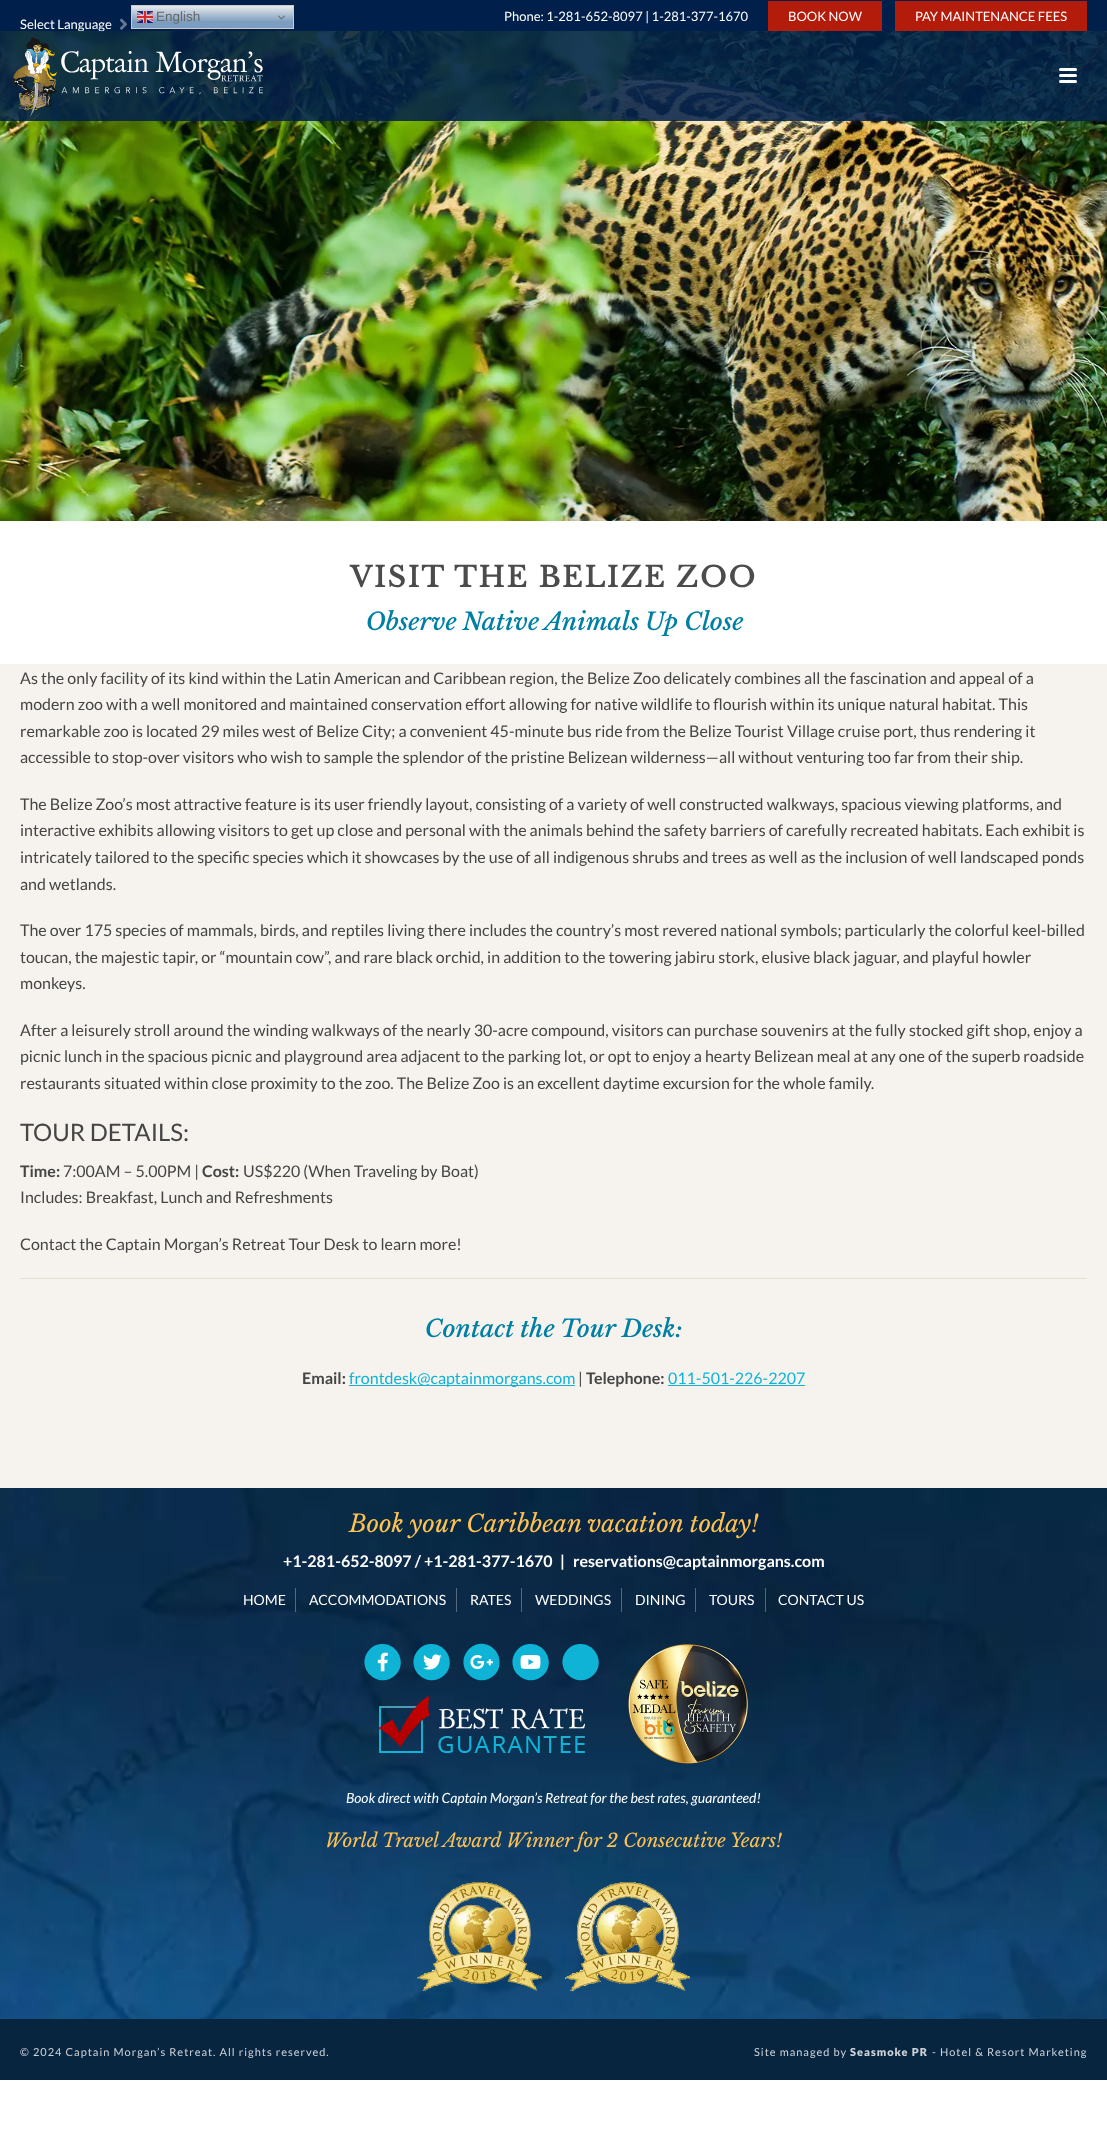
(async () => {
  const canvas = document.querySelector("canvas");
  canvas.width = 1107;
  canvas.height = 2154;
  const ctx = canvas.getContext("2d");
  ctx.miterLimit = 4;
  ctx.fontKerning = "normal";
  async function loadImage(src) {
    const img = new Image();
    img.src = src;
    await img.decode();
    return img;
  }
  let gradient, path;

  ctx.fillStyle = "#ffffff";
  ctx.fillRect(0, 0, 1107, 2154);
  ctx.fillStyle = "#011f4b";
  ctx.fillRect(0, 0, 1107, 31);
  gradient = ctx.createLinearGradient(213, 5, 213, 29);
  gradient.addColorStop(0, "#efefef");
  gradient.addColorStop(0.7, "#7c9dbf");
  ctx.fillStyle = gradient;
  ctx.fillRect(132, 6, 161, 22);
  ctx.strokeStyle = "#cccccc";
  ctx.strokeRect(131.5, 5.5, 162, 23);
  ctx.drawImage(await loadImage("img/1.png"), 137, 11, 16, 12);
  ctx.drawImage(await loadImage("img/2.png"), 278, 15, 7, 5);
  ctx.fillStyle = "#b31c0b";
  ctx.fillRect(768, 1, 114, 30);
  ctx.fillRect(895, 1, 192, 30);
  ctx.drawImage(await loadImage("img/3.png"), 120, 18, 7, 12);
  ctx.drawImage(await loadImage("img/5.png"), 0, 31, 1107, 490);
  for (const [x, y, w, h, color] of [
    [0, 664, 1107, 824, "#f6f3ee"],
    [20, 1278, 1067, 1, "#e5e1d2"],
    [349, 1385, 226, 1, "#0eb3d6"],
    [668, 1385, 137, 1, "#0eb3d6"],
  ]) {
    ctx.fillStyle = color;
    ctx.fillRect(x, y, w, h);
  }
  ctx.drawImage(await loadImage("img/6.png"), 0, 1488, 1107, 531);
  for (const [x, y, w, h, color] of [
    [295, 1588, 1, 24, "rgba(255, 255, 255, 0.3)"],
    [456, 1588, 1, 24, "#546a7f"],
    [521, 1588, 1, 24, "#54687e"],
    [621, 1588, 1, 24, "#53687c"],
    [695, 1588, 1, 24, "#53667b"],
    [765, 1588, 1, 24, "#536677"],
  ]) {
    ctx.fillStyle = color;
    ctx.fillRect(x, y, w, h);
  }
  ctx.fillStyle = "#0eb3d6";
  path = new Path2D("M370 1649C373 1646 376.5 1644.5 381 1644C397.5 1642.5 407.5 1663 395.5 1675C383.5 1687 363 1677 364.5 1660C365 1656 367 1652 370 1649Z");
  ctx.fill(path);
  ctx.drawImage(await loadImage("img/7.png"), 377, 1652, 11, 20);
  path = new Path2D("M419 1649C422 1646 425.5 1644.5 430 1644C446.5 1642.5 456.5 1663 444.5 1675C432.5 1687 412 1677 413.5 1660C414 1656 416 1652 419 1649Z");
  ctx.fill(path);
  ctx.drawImage(await loadImage("img/8.png"), 423, 1654, 19, 16);
  path = new Path2D("M469 1649C481 1637 501 1647 499.5 1664C499.5 1668 497.5 1672 494.5 1675C482.5 1687 462 1677 463.5 1660C464 1656 466 1652 469 1649Z");
  ctx.fill(path);
  ctx.drawImage(await loadImage("img/9.png"), 470, 1655, 23, 14);
  path = new Path2D("M518 1649C521 1646 524.5 1644.5 529 1644C545.5 1642.5 555.5 1663 543.5 1675C531.5 1687 511 1677 512.5 1660C513 1656 515 1652 518 1649Z");
  ctx.fill(path);
  ctx.drawImage(await loadImage("img/10.png"), 520, 1655, 21, 14);
  path = new Path2D("M568 1649C571 1646 574.5 1644.5 579 1644C595.5 1642.5 605.5 1663 593.5 1675C581.5 1687 561 1677 562.5 1660C563 1656 565 1652 568 1649Z");
  ctx.fill(path);
  ctx.drawImage(await loadImage("img/11.png"), 378, 1696, 207, 57);
  ctx.drawImage(await loadImage("img/12.png"), 628, 1644, 120, 120);
  ctx.drawImage(await loadImage("img/13.png"), 417, 1882, 125, 110);
  ctx.drawImage(await loadImage("img/14.png"), 565, 1882, 125, 110);
  ctx.fillStyle = "#082540";
  ctx.fillRect(0, 2019, 1107, 61);
  ctx.font = "13.5px Liberation Sans";
  ctx.fillStyle = "#666666";
  ctx.fillText("English", 156, 21);
  ctx.font = "13px Lato";
  ctx.fillStyle = "#ffffff";
  for (const [text, x, y] of [
    ["Phone: 1-281-652-8097 | 1-281-377-1670", 504, 21],
    ["BOOK NOW", 788, 21],
    ["PAY MAINTENANCE FEES", 915, 21],
    ["Select Language", 20, 29],
  ]) {
    ctx.fillText(text, x, y);
  }
  ctx.fillStyle = "rgba(1, 31, 75, 0.86)";
  ctx.fillRect(0, 31, 1107, 90);
  ctx.drawImage(await loadImage("img/4.png"), 12, 37, 252, 80);
  ctx.fillStyle = "#ffffff";
  ctx.beginPath();
  ctx.roundRect(1059, 68, 18, 3, 1.5);
  ctx.fill();
  ctx.beginPath();
  ctx.roundRect(1059, 74, 18, 3, 1.5);
  ctx.fill();
  ctx.beginPath();
  ctx.roundRect(1059, 80, 18, 3, 1.5);
  ctx.fill();
  ctx.letterSpacing = "2px";
  ctx.font = "bold 28px Libre Baskerville";
  ctx.fillStyle = "#4b4b4b";
  ctx.fillText("VISIT THE BELIZE ZOO", 350, 587);
  ctx.letterSpacing = "0px";
  ctx.font = "italic 500 24px Libre Baskerville";
  ctx.fillStyle = "#007fa4";
  ctx.fillText("Observe Native Animals Up Close", 366, 630);
  ctx.font = "16px Lato";
  ctx.fillStyle = "#454545";
  for (const [text, x, y] of [
    ["As the only facility of its kind within the Latin American and Caribbean region, the Belize Zoo delicately combines all the fascination and appeal of a", 20, 684],
    ["modern zoo with a well monitored and maintained conservation effort allowing for native wildlife to flourish within its unique natural habitat. This", 20, 710],
    ["remarkable zoo is located 29 miles west of Belize City; a convenient 45-minute bus ride from the Belize Tourist Village cruise port, thus rendering it", 20, 737],
    ["accessible to stop-over visitors who wish to sample the splendor of the pristine Belizean wilderness—all without venturing too far from their ship.", 20, 763],
    ["The Belize Zoo’s most attractive feature is its user friendly layout, consisting of a variety of well constructed walkways, spacious viewing platforms, and", 20, 810],
    ["interactive exhibits allowing visitors to get up close and personal with the animals behind the safety barriers of carefully recreated habitats. Each exhibit is", 20, 836],
    ["intricately tailored to the specific species which it showcases by the use of all indigenous shrubs and trees as well as the inclusion of well landscaped ponds", 20, 863],
    ["and wetlands.", 20, 890],
    ["The over 175 species of mammals, birds, and reptiles living there includes the country’s most revered national symbols; particularly the colorful keel-billed", 20, 936],
    ["toucan, the majestic tapir, or “mountain cow”, and rare black orchid, in addition to the towering jabiru stork, elusive black jaguar, and playful howler", 20, 963],
    ["monkeys.", 20, 989],
    ["After a leisurely stroll around the winding walkways of the nearly 30-acre compound, visitors can purchase souvenirs at the fully stocked gift shop, enjoy a", 20, 1036],
    ["picnic lunch in the spacious picnic and playground area adjacent to the parking lot, or opt to enjoy a hearty Belizean meal at any one of the superb roadside", 20, 1062],
    ["restaurants situated within close proximity to the zoo. The Belize Zoo is an excellent daytime excursion for the whole family.", 20, 1089],
  ]) {
    ctx.fillText(text, x, y);
  }
  ctx.font = "24px Lato";
  ctx.fillText("TOUR DETAILS:", 20, 1141);
  ctx.font = "bold 16px Lato";
  ctx.fillText("Time:", 20, 1177);
  ctx.font = "16px Lato";
  ctx.fillText("7:00AM – 5.00PM |", 63, 1177);
  ctx.font = "bold 16px Lato";
  ctx.fillText("Cost:", 202, 1177);
  ctx.font = "16px Lato";
  for (const [text, x, y] of [
    ["US$220 (When Traveling by Boat)", 243, 1177],
    ["Includes: Breakfast, Lunch and Refreshments", 20, 1203],
    ["Contact the Captain Morgan’s Retreat Tour Desk to learn more!", 20, 1250],
  ]) {
    ctx.fillText(text, x, y);
  }
  ctx.font = "italic 500 24px Libre Baskerville";
  ctx.fillStyle = "#007fa4";
  ctx.fillText("Contact the Tour Desk:", 425, 1337);
  ctx.font = "bold 16px Lato";
  ctx.fillStyle = "#454545";
  ctx.fillText("Email:", 302, 1384);
  ctx.font = "16px Lato";
  ctx.fillStyle = "#0eb3d6";
  ctx.fillText("frontdesk@captainmorgans.com", 349, 1384);
  ctx.fillStyle = "#454545";
  ctx.fillText("|", 578, 1384);
  ctx.font = "bold 16px Lato";
  ctx.fillText("Telephone:", 586, 1384);
  ctx.font = "16px Lato";
  ctx.fillStyle = "#0eb3d6";
  ctx.fillText("011-501-226-2207", 668, 1384);
  ctx.font = "italic 24px Libre Baskerville";
  ctx.fillStyle = "#fdc251";
  ctx.fillText("Book your Caribbean vacation today!", 349, 1532);
  ctx.font = "bold 16px Lato";
  ctx.fillStyle = "#ffffff";
  for (const [text, x, y] of [
    ["+1-281-652-8097 / +1-281-377-1670", 283, 1567],
    ["|", 560, 1567],
    ["reservations@captainmorgans.com", 573, 1567],
  ]) {
    ctx.fillText(text, x, y);
  }
  ctx.font = "14px Lato";
  for (const [text, x, y] of [
    ["HOME", 243, 1605],
    ["ACCOMMODATIONS", 309, 1605],
    ["RATES", 470, 1605],
    ["WEDDINGS", 535, 1605],
    ["DINING", 635, 1605],
    ["TOURS", 709, 1605],
    ["CONTACT US", 778, 1605],
  ]) {
    ctx.fillText(text, x, y);
  }
  ctx.font = "italic 14px Lato";
  ctx.fillText("Book direct with Captain Morgan’s Retreat for the best rates, guaranteed!", 346, 1803);
  ctx.font = "italic 18.7px Libre Baskerville";
  ctx.fillStyle = "#fdc251";
  ctx.fillText("World Travel Award Winner for 2 Consecutive Years!", 325, 1847);
  ctx.letterSpacing = "1px";
  ctx.font = "11px Lato";
  ctx.fillStyle = "#ced3d9";
  ctx.fillText("© 2024 Captain Morgan’s Retreat. All rights reserved.", 20, 2056);
  ctx.fillText("Site managed by", 754, 2056);
  ctx.font = "900 11px Lato";
  ctx.fillText("Seasmoke PR", 850, 2056);
  ctx.font = "11px Lato";
  ctx.fillText("- Hotel & Resort Marketing", 932, 2056);
})();
